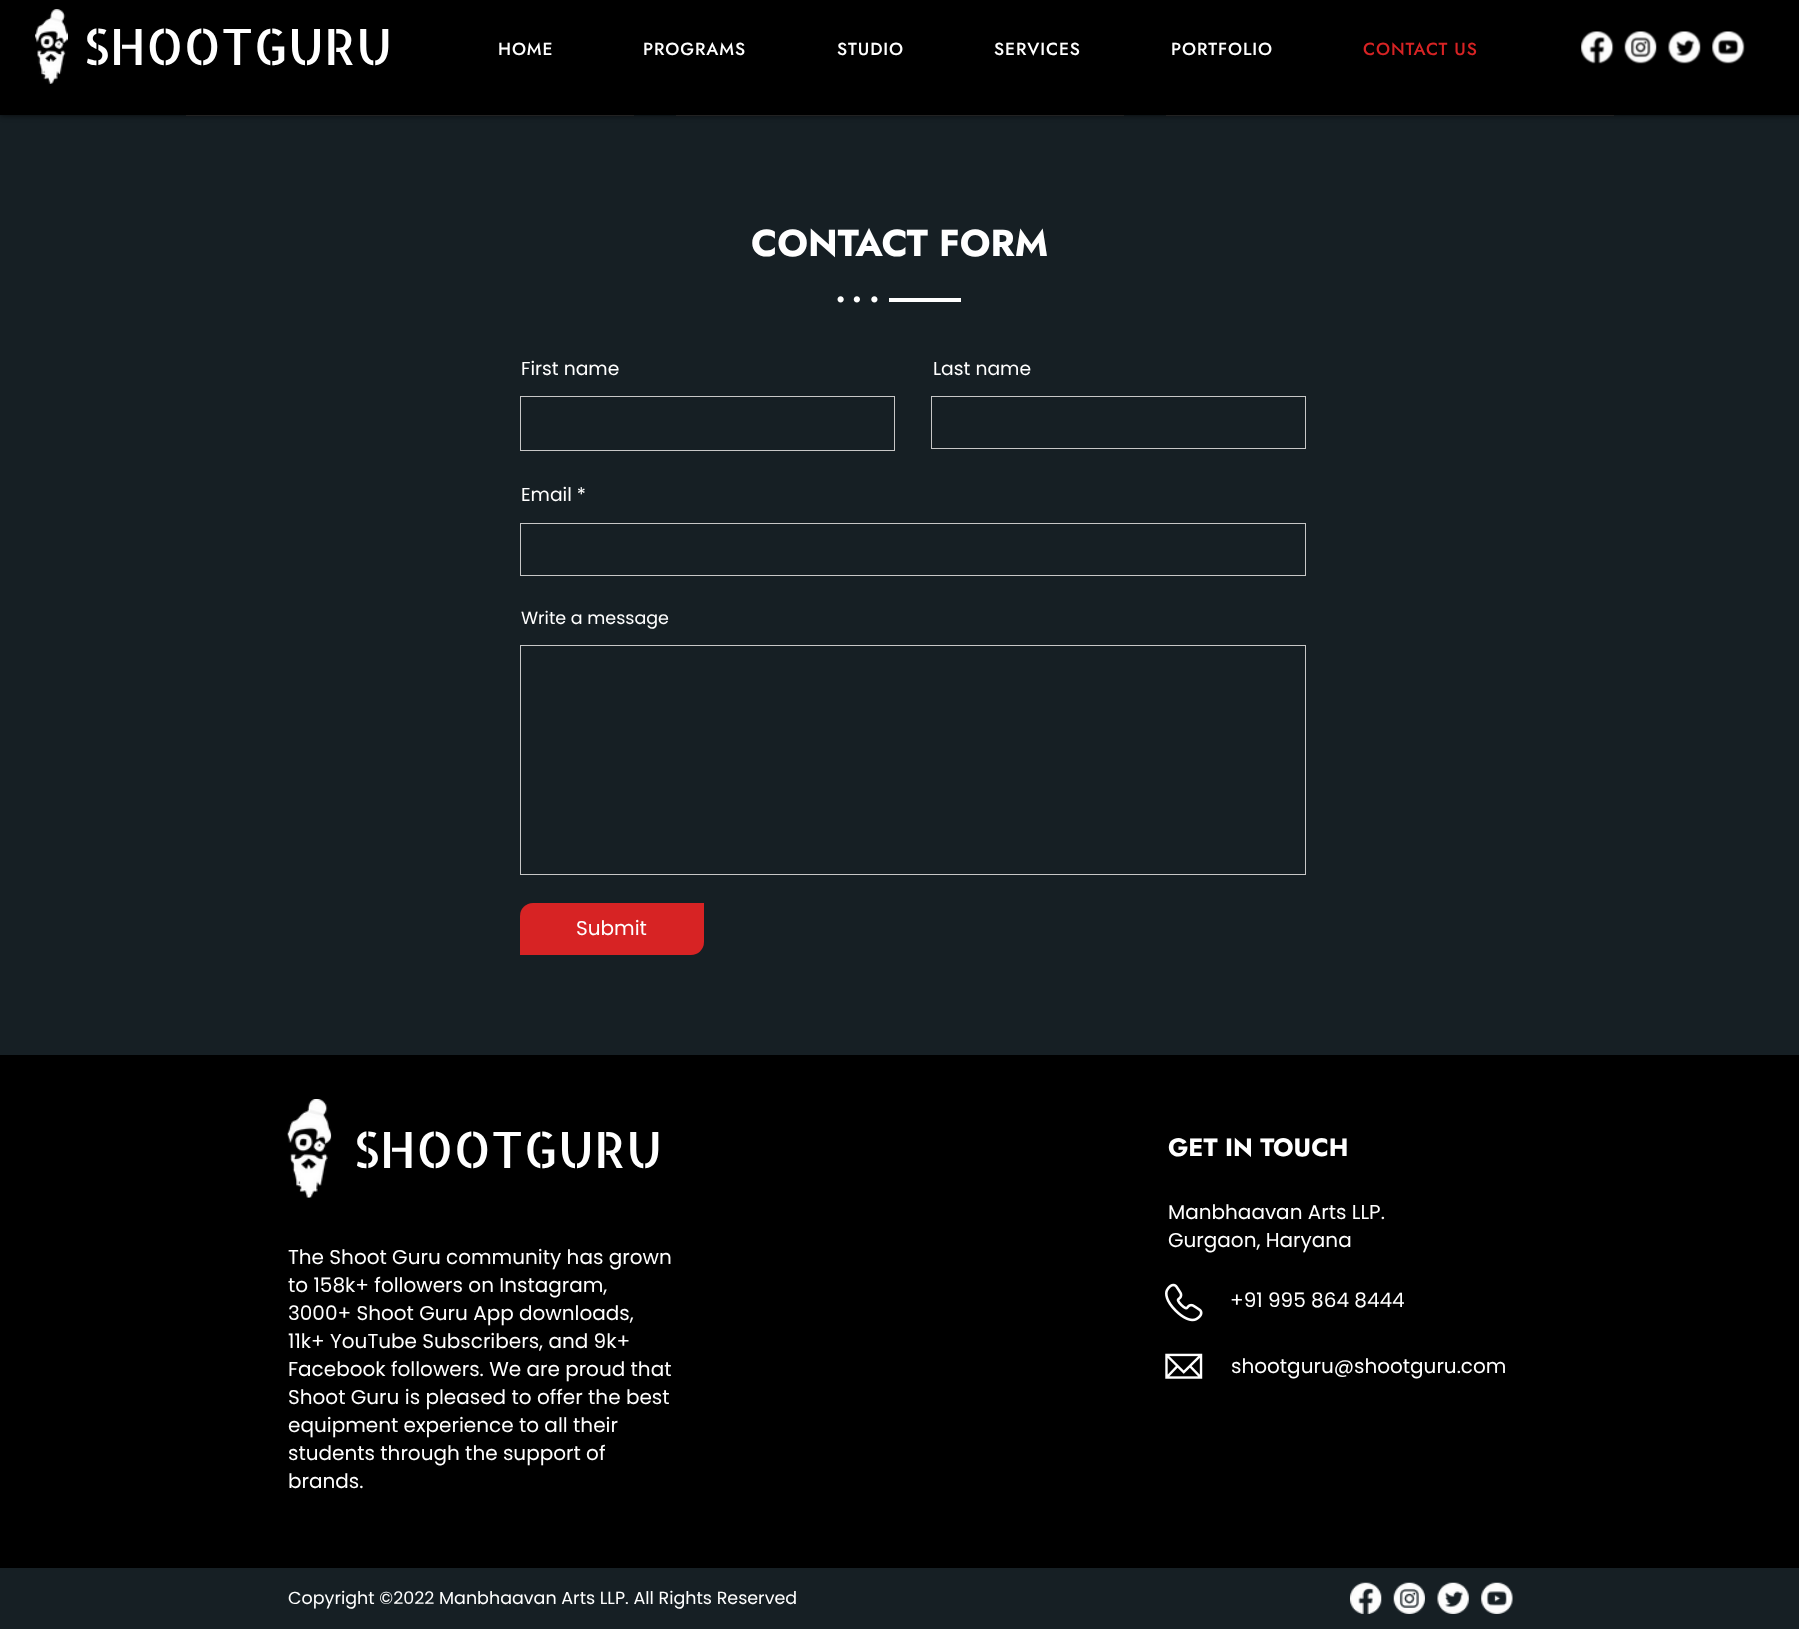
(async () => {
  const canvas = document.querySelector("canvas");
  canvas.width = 1799;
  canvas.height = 1629;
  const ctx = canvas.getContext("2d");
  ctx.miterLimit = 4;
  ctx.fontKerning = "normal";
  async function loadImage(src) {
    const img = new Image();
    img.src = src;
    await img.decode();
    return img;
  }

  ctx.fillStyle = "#161f24";
  ctx.fillRect(0, 0, 1799, 1629);
  for (const [x, y, w, h, color] of [
    [186, 115, 448, 1, "#323232"],
    [676, 115, 448, 1, "#323232"],
    [1166, 115, 448, 1, "#323232"],
  ]) {
    ctx.fillStyle = color;
    ctx.fillRect(x, y, w, h);
  }
  ctx.fillStyle = "rgba(0, 0, 0, 0.7)";
  ctx.filter = "blur(3px)";
  ctx.beginPath();
  ctx.rect(0, 0, 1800, 115);
  ctx.fill();
  ctx.filter = "none";
  ctx.fillStyle = "#000000";
  ctx.fillRect(0, 0, 1799, 115);
  ctx.drawImage(await loadImage("img/1.png"), 35, 9, 33, 75);
  ctx.drawImage(await loadImage("img/2.png"), 1581, 31, 33, 33);
  ctx.drawImage(await loadImage("img/3.png"), 1624, 31, 33, 33);
  ctx.drawImage(await loadImage("img/4.png"), 1668, 31, 33, 33);
  ctx.drawImage(await loadImage("img/5.png"), 1712, 31, 33, 33);
  ctx.drawImage(await loadImage("img/6.png"), 837, 296, 7, 7);
  ctx.drawImage(await loadImage("img/7.png"), 853, 296, 7, 7);
  ctx.drawImage(await loadImage("img/8.png"), 871, 296, 7, 7);
  ctx.fillStyle = "#ffffff";
  ctx.fillRect(889, 298, 72, 4);
  ctx.strokeStyle = "#c7c7c7";
  ctx.strokeRect(520.5, 396.5, 374, 54);
  ctx.strokeRect(931.5, 396.5, 374, 52);
  ctx.strokeRect(520.5, 523.5, 785, 52);
  ctx.strokeRect(520.5, 645.5, 785, 229);
  ctx.fillStyle = "#d72324";
  ctx.beginPath();
  ctx.roundRect(520, 903, 184, 52, [13, 0, 13, 0]);
  ctx.fill();
  ctx.fillStyle = "#000000";
  ctx.fillRect(0, 1055, 1799, 513);
  ctx.drawImage(await loadImage("img/9.png"), 287, 1099, 45, 99);
  ctx.drawImage(await loadImage("img/10.png"), 1165, 1283, 38, 39);
  ctx.drawImage(await loadImage("img/11.png"), 1165, 1353, 38, 26);
  ctx.drawImage(await loadImage("img/12.png"), 1350, 1582, 32, 32);
  ctx.drawImage(await loadImage("img/13.png"), 1393, 1582, 32, 32);
  ctx.drawImage(await loadImage("img/14.png"), 1437, 1582, 32, 32);
  ctx.drawImage(await loadImage("img/15.png"), 1481, 1582, 32, 32);
  ctx.font = "50px Allerta Stencil";
  ctx.fillStyle = "#ffffff";
  ctx.fillText("SHOOTGURU", 83, 65);
  ctx.letterSpacing = "0.9px";
  ctx.font = "500 17.5px Jost";
  for (const [text, x, y] of [
    ["HOME", 498, 55],
    ["PROGRAMS", 643, 55],
    ["STUDIO", 837, 55],
    ["SERVICES", 994, 55],
    ["PORTFOLIO", 1171, 55],
  ]) {
    ctx.fillText(text, x, y);
  }
  ctx.fillStyle = "#d72324";
  ctx.fillText("CONTACT US", 1363, 55);
  ctx.letterSpacing = "0px";
  ctx.font = "bold 37.5px Jost";
  ctx.fillStyle = "#ffffff";
  ctx.fillText("CONTACT FORM", 751, 256);
  ctx.font = "18.75px Poppins";
  for (const [text, x, y] of [
    ["First name", 521, 375],
    ["Last name", 933, 375],
    ["Email *", 521, 501],
  ]) {
    ctx.fillText(text, x, y);
  }
  ctx.font = "17.5px Poppins";
  ctx.fillText("Write a message", 521, 624);
  ctx.font = "20px Poppins";
  ctx.fillText("Submit", 576, 935);
  ctx.font = "50px Allerta Stencil";
  ctx.fillText("SHOOTGURU", 353, 1168);
  ctx.font = "bold 25px Jost";
  ctx.fillText("GET IN TOUCH", 1168, 1156);
  ctx.font = "20px Poppins";
  for (const [text, x, y] of [
    ["Manbhaavan Arts LLP.", 1168, 1219],
    ["Gurgaon, Haryana", 1168, 1247],
    ["The Shoot Guru community has grown", 288, 1264],
    ["to 158k+ followers on Instagram,", 288, 1292],
    ["3000+ Shoot Guru App downloads,", 288, 1320],
    ["11k+ YouTube Subscribers, and 9k+", 288, 1348],
    ["Facebook followers. We are proud that", 288, 1376],
    ["Shoot Guru is pleased to offer the best", 288, 1404],
    ["equipment experience to all their", 288, 1432],
    ["students through the support of", 288, 1460],
    ["brands.", 288, 1488],
    ["+91 995 864 8444", 1230, 1307],
    ["shootguru@shootguru.com", 1231, 1373],
  ]) {
    ctx.fillText(text, x, y);
  }
  ctx.font = "17.5px Poppins";
  ctx.fillText("Copyright ©2022 Manbhaavan Arts LLP. All Rights Reserved", 288, 1604);
})();
